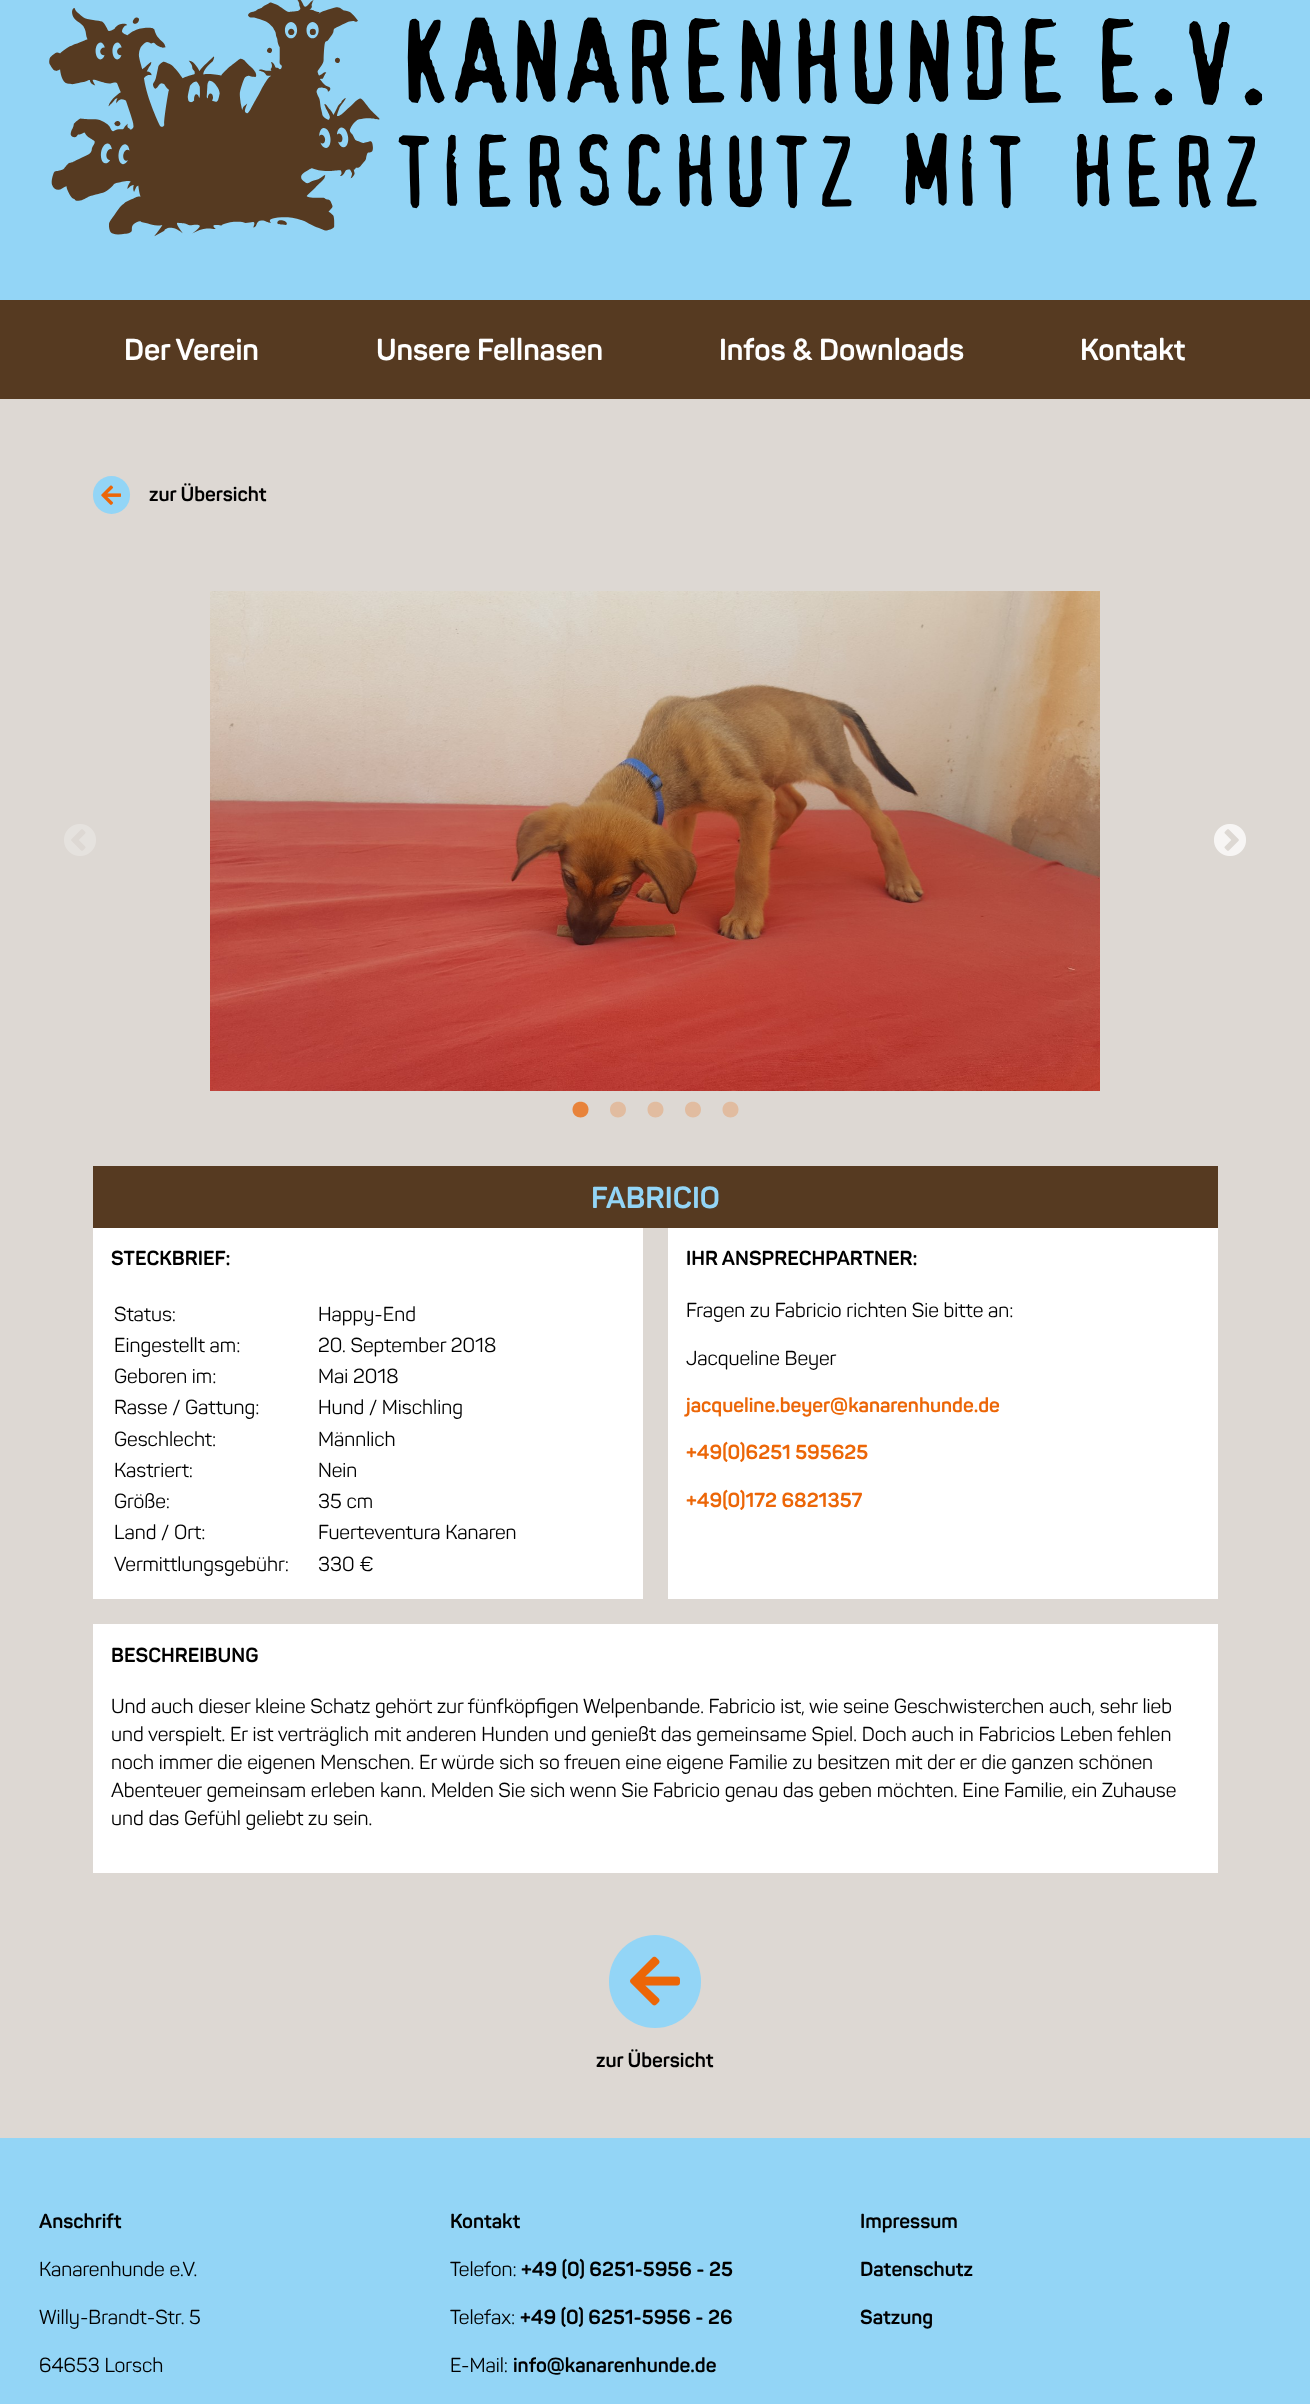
(async () => {
  const canvas = document.querySelector("canvas");
  canvas.width = 1310;
  canvas.height = 2404;
  const ctx = canvas.getContext("2d");
  ctx.miterLimit = 4;
  ctx.fontKerning = "normal";
  async function loadImage(src) {
    const img = new Image();
    img.src = src;
    await img.decode();
    return img;
  }
  let path;

  ctx.fillStyle = "#ddd8d3";
  ctx.fillRect(0, 0, 1310, 2404);
  ctx.fillStyle = "#93d5f6";
  ctx.fillRect(0, 0, 1310, 300);
  ctx.drawImage(await loadImage("img/1.png"), 49, 0, 1214, 237);
  ctx.fillStyle = "#563a21";
  ctx.fillRect(0, 300, 1310, 99);
  ctx.fillStyle = "#93d5f6";
  ctx.beginPath();
  ctx.roundRect(93, 476, 37, 38, 18.5);
  ctx.fill();
  ctx.drawImage(await loadImage("img/2.png"), 101, 485, 20, 20);
  ctx.drawImage(await loadImage("img/3.png"), 64, 824, 32, 32);
  ctx.drawImage(await loadImage("img/4.png"), 210, 591, 890, 500);
  ctx.drawImage(await loadImage("img/5.png"), 1214, 824, 32, 32);
  ctx.fillStyle = "#e8833a";
  path = new Path2D("M588.5 1109.5C588.5 1099 572.5 1099 572.5 1109.5C572.5 1120 588.5 1120 588.5 1109.5Z");
  ctx.fill(path);
  ctx.fillStyle = "#e1bca0";
  path = new Path2D("M626 1109.5C626 1099 610 1099 610 1109.5C610 1120 626 1120 626 1109.5ZM663.5 1109.5C663.5 1099 647.5 1099 647.5 1109.5C647.5 1120 663.5 1120 663.5 1109.5Z");
  ctx.fill(path);
  path = new Path2D("M701 1109.5C701 1099 685 1099 685 1109.5C685 1120 701 1120 701 1109.5ZM738.5 1109.5C738.5 1099 722.5 1099 722.5 1109.5C722.5 1120 738.5 1120 738.5 1109.5Z");
  ctx.fill(path);
  for (const [x, y, w, h, color] of [
    [93, 1166, 1125, 62, "#563a21"],
    [93, 1228, 550, 371, "#ffffff"],
    [668, 1228, 550, 371, "#ffffff"],
    [93, 1624, 1125, 249, "#ffffff"],
  ]) {
    ctx.fillStyle = color;
    ctx.fillRect(x, y, w, h);
  }
  ctx.fillStyle = "#93d5f6";
  ctx.beginPath();
  ctx.roundRect(609, 1935, 92, 93, 46);
  ctx.fill();
  ctx.drawImage(await loadImage("img/6.png"), 630, 1956, 50, 50);
  ctx.fillRect(0, 2138, 1310, 266);
  ctx.font = "bold 30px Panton";
  ctx.fillStyle = "#ffffff";
  for (const [text, x, y] of [
    ["Der Verein", 124, 360],
    ["Unsere Fellnasen", 376, 360],
    ["Infos & Downloads", 719, 360],
    ["Kontakt", 1080, 360],
  ]) {
    ctx.fillText(text, x, y);
  }
  ctx.font = "bold 20px Panton";
  ctx.fillStyle = "#000000";
  ctx.fillText("zur Übersicht", 149, 501);
  ctx.font = "bold 30px Panton";
  ctx.fillStyle = "#93d5f6";
  ctx.fillText("FABRICIO", 591, 1208);
  ctx.font = "bold 20px Panton";
  ctx.fillStyle = "#000000";
  ctx.fillText("STECKBRIEF:", 111, 1265);
  ctx.font = "20px Panton";
  for (const [text, x, y] of [
    ["Status:", 114, 1321],
    ["Happy-End", 318, 1321],
    ["Eingestellt am:", 114, 1352],
    ["20. September 2018", 318, 1352],
    ["Geboren im:", 114, 1383],
    ["Mai 2018", 318, 1383],
    ["Rasse / Gattung:", 114, 1414],
    ["Hund / Mischling", 318, 1414],
    ["Geschlecht:", 114, 1446],
    ["Männlich", 318, 1446],
    ["Kastriert:", 114, 1477],
    ["Nein", 318, 1477],
    ["Größe:", 114, 1508],
    ["35 cm", 318, 1508],
    ["Land / Ort:", 114, 1539],
    ["Fuerteventura Kanaren", 318, 1539],
    ["Vermittlungsgebühr:", 114, 1571],
    ["330 €", 318, 1571],
  ]) {
    ctx.fillText(text, x, y);
  }
  ctx.font = "bold 20px Panton";
  ctx.fillText("IHR ANSPRECHPARTNER:", 686, 1265);
  ctx.font = "20px Panton";
  ctx.fillText("Fragen zu Fabricio richten Sie bitte an:", 686, 1317);
  ctx.fillText("Jacqueline Beyer", 686, 1365);
  ctx.font = "bold 20px Panton";
  ctx.fillStyle = "#ec6607";
  for (const [text, x, y] of [
    ["jacqueline.beyer@kanarenhunde.de", 686, 1412],
    ["+49(0)6251 595625", 686, 1459],
    ["+49(0)172 6821357", 686, 1507],
  ]) {
    ctx.fillText(text, x, y);
  }
  ctx.fillStyle = "#000000";
  ctx.fillText("BESCHREIBUNG", 111, 1662);
  ctx.font = "20px Panton";
  for (const [text, x, y] of [
    ["Und auch dieser kleine Schatz gehört zur fünfköpfigen Welpenbande. Fabricio ist, wie seine Geschwisterchen auch, sehr lieb", 111, 1713],
    ["und verspielt. Er ist verträglich mit anderen Hunden und genießt das gemeinsame Spiel. Doch auch in Fabricios Leben fehlen", 111, 1741],
    ["noch immer die eigenen Menschen. Er würde sich so freuen eine eigene Familie zu besitzen mit der er die ganzen schönen", 111, 1769],
    ["Abenteuer gemeinsam erleben kann. Melden Sie sich wenn Sie Fabricio genau das geben möchten. Eine Familie, ein Zuhause", 111, 1797],
    ["und das Gefühl geliebt zu sein.", 111, 1825],
  ]) {
    ctx.fillText(text, x, y);
  }
  ctx.font = "bold 20px Panton";
  ctx.fillText("zur Übersicht", 596, 2067);
  ctx.fillText("Anschrift", 39, 2228);
  ctx.font = "20px Panton";
  for (const [text, x, y] of [
    ["Kanarenhunde e.V.", 39, 2276],
    ["Willy-Brandt-Str. 5", 39, 2324],
    ["64653 Lorsch", 39, 2372],
  ]) {
    ctx.fillText(text, x, y);
  }
  ctx.font = "bold 20px Panton";
  ctx.fillText("Kontakt", 450, 2228);
  ctx.font = "20px Panton";
  ctx.fillText("Telefon:", 450, 2276);
  ctx.font = "bold 20px Panton";
  ctx.fillText("+49 (0) 6251-5956 - 25", 521, 2276);
  ctx.font = "20px Panton";
  ctx.fillText("Telefax:", 450, 2324);
  ctx.font = "bold 20px Panton";
  ctx.fillText("+49 (0) 6251-5956 - 26", 520, 2324);
  ctx.font = "20px Panton";
  ctx.fillText("E-Mail:", 450, 2372);
  ctx.font = "bold 20px Panton";
  for (const [text, x, y] of [
    ["info@kanarenhunde.de", 513, 2372],
    ["Impressum", 860, 2228],
    ["Datenschutz", 860, 2276],
    ["Satzung", 860, 2324],
  ]) {
    ctx.fillText(text, x, y);
  }
})();
